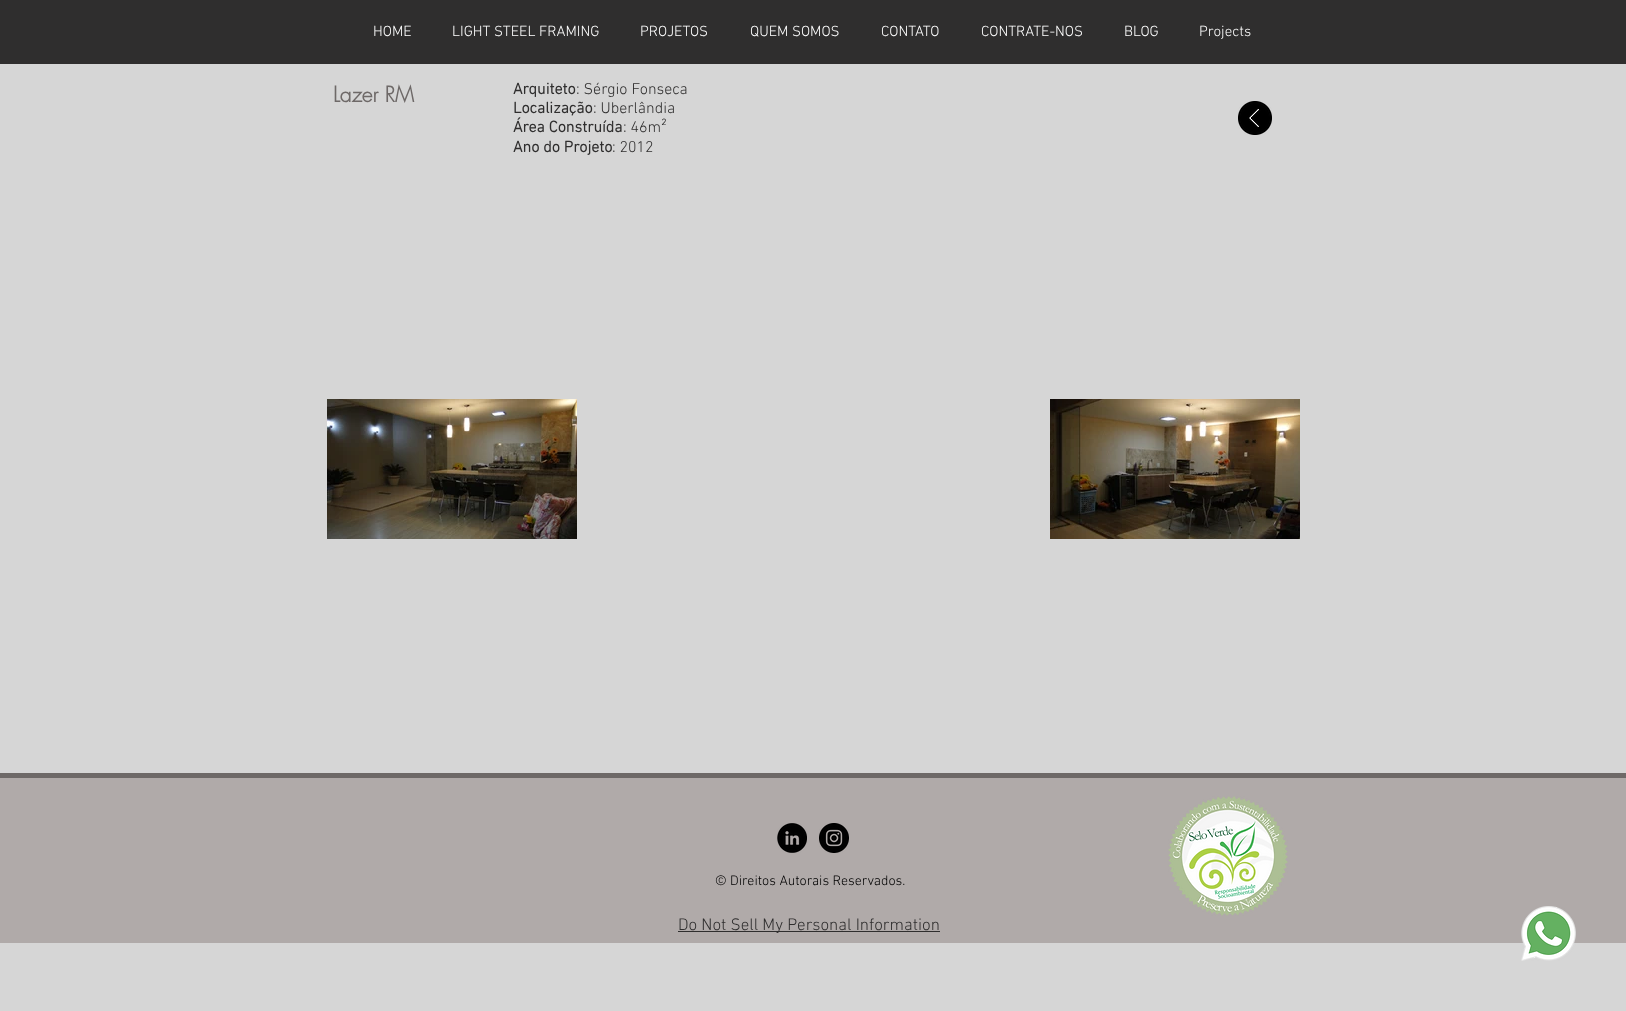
(async () => {
  const canvas = document.querySelector("canvas");
  canvas.width = 1626;
  canvas.height = 1011;
  const ctx = canvas.getContext("2d");
  ctx.miterLimit = 4;
  ctx.fontKerning = "normal";
  async function loadImage(src) {
    const img = new Image();
    img.src = src;
    await img.decode();
    return img;
  }

  ctx.fillStyle = "#d6d6d6";
  ctx.fillRect(0, 0, 1626, 1011);
  ctx.fillStyle = "#2f2e2e";
  ctx.fillRect(0, 0, 1626, 64);
  ctx.drawImage(await loadImage("img/1.png"), 1238, 101, 34, 34);
  ctx.drawImage(await loadImage("img/2.png"), 327, 399, 250, 140);
  ctx.drawImage(await loadImage("img/3.png"), 1050, 399, 250, 140);
  ctx.fillStyle = "#b0aaa9";
  ctx.fillRect(0, 778, 1626, 165);
  ctx.fillStyle = "#6e6968";
  ctx.fillRect(0, 773, 1626, 5);
  ctx.drawImage(await loadImage("img/4.png"), 777, 823, 30, 30);
  ctx.drawImage(await loadImage("img/5.png"), 819, 823, 30, 30);
  ctx.drawImage(await loadImage("img/6.png"), 1168, 796, 120, 120);
  ctx.fillStyle = "#2f2e2e";
  ctx.fillRect(678, 931, 262, 1);
  ctx.drawImage(await loadImage("img/7.png"), 1521, 906, 55, 55);
  ctx.font = "300 15px 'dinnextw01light'";
  ctx.fillStyle = "#ffffff";
  for (const [text, x, y] of [
    ["HOME", 373, 36],
    ["LIGHT STEEL FRAMING", 452, 36],
    ["PROJETOS", 640, 36],
    ["QUEM SOMOS", 750, 36],
    ["CONTATO", 881, 36],
    ["CONTRATE-NOS", 981, 36],
    ["BLOG", 1124, 36],
    ["Projects", 1199, 36],
  ]) {
    ctx.fillText(text, x, y);
  }
  ctx.font = "bold 21px futura";
  ctx.fillStyle = "#6e6968";
  ctx.fillText("Lazer RM", 333, 102);
  ctx.font = "bold 16px 'dinnextw01light'";
  ctx.fillStyle = "#2f2e2e";
  ctx.fillText("Arquiteto", 513, 94);
  ctx.font = "300 16px 'dinnextw01light'";
  ctx.fillText(": Sérgio Fonseca", 576, 94);
  ctx.font = "bold 16px 'dinnextw01light'";
  ctx.fillText("Localização", 513, 113);
  ctx.font = "300 16px 'dinnextw01light'";
  ctx.fillText(": Uberlândia", 593, 113);
  ctx.font = "bold 16px 'dinnextw01light'";
  ctx.fillText("Área Construída", 513, 132);
  ctx.font = "300 16px 'dinnextw01light'";
  ctx.fillText(": 46m²", 623, 132);
  ctx.font = "bold 16px 'dinnextw01light'";
  ctx.fillText("Ano do Projeto", 513, 152);
  ctx.font = "300 16px 'dinnextw01light'";
  ctx.fillText(": 2012", 612, 152);
  ctx.font = "300 14px 'dinnextw01light'";
  ctx.fillStyle = "#000000";
  ctx.fillText("© Direitos Autorais Reservados.", 715, 885);
  ctx.font = "300 17px 'dinnextw01light'";
  ctx.fillStyle = "#2f2e2e";
  ctx.fillText("Do Not Sell My Personal Information", 678, 930);
})();
